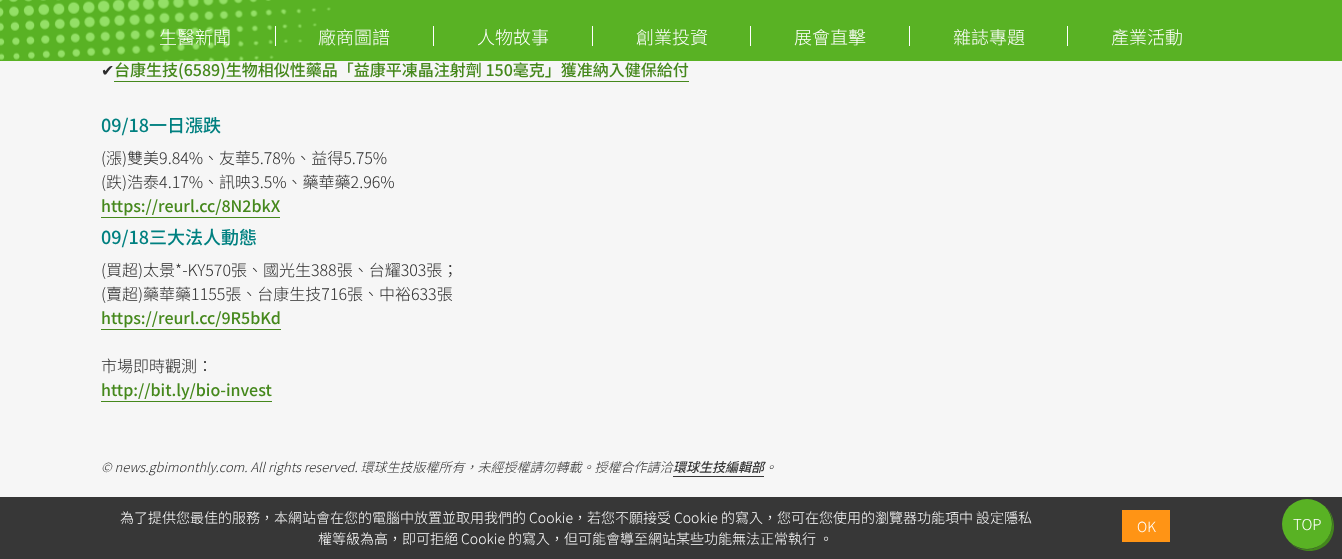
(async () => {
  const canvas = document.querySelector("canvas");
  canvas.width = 1342;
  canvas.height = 559;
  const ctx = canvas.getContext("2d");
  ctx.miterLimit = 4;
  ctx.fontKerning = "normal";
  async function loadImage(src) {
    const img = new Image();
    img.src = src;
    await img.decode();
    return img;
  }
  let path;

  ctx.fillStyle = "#f6f6f6";
  ctx.fillRect(0, 0, 1342, 559);
  ctx.fillStyle = "#59b224";
  ctx.fillRect(0, 0, 1342, 61);
  ctx.drawImage(await loadImage("img/1.png"), 0, 0, 331, 62);
  for (const [x, y, w, h, color] of [
    [275, 26, 1, 20, "#ffffff"],
    [433, 26, 1, 20, "#ffffff"],
    [592, 26, 1, 20, "#ffffff"],
    [750, 26, 1, 20, "#ffffff"],
    [909, 26, 1, 20, "#ffffff"],
    [1067, 26, 1, 20, "#ffffff"],
    [114, 81, 575, 1, "#45881c"],
    [101, 217, 179, 1, "#45881c"],
    [101, 329, 180, 1, "#45881c"],
    [101, 401, 171, 1, "#45881c"],
    [673, 476, 91, 1, "#373737"],
    [0, 497, 1342, 62, "#373737"],
    [1122, 510, 48, 32, "#ff9415"],
  ]) {
    ctx.fillStyle = color;
    ctx.fillRect(x, y, w, h);
  }
  ctx.fillStyle = "#43861c";
  path = new Path2D("M1290 543C1300 553 1317 554 1327 544C1337 534 1336 517 1326 507C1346 531 1314 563 1290 543Z");
  ctx.fill(path);
  ctx.fillStyle = "#59b224";
  ctx.beginPath();
  ctx.arc(1307, 524, 25, 0, Math.PI * 2);
  ctx.fill();
  ctx.font = "300 18px Noto Sans TC";
  ctx.fillStyle = "#ffffff";
  for (const [text, x, y] of [
    ["生醫新聞", 159, 44],
    ["廠商圖譜", 318, 44],
    ["人物故事", 477, 44],
    ["創業投資", 636, 44],
    ["展會直擊", 794, 44],
    ["雜誌專題", 953, 44],
    ["產業活動", 1111, 44],
  ]) {
    ctx.fillText(text, x, y);
  }
  ctx.font = "16px DejaVu Sans";
  ctx.fillStyle = "#2c2c2c";
  ctx.fillText("✔", 101, 76);
  ctx.font = "500 16px Noto Sans TC";
  ctx.fillStyle = "#45881c";
  ctx.fillText("台康生技(6589)生物相似性藥品「益康平凍晶注射劑 150毫克」獲准納入健保給付", 114, 76);
  ctx.font = "500 18px Noto Sans TC";
  ctx.fillStyle = "#008080";
  ctx.fillText("09/18一日漲跌", 101, 132);
  ctx.font = "300 16px Noto Sans TC";
  ctx.fillStyle = "#2c2c2c";
  ctx.fillText("(漲)雙美9.84%、友華5.78%、益得5.75%", 101, 164);
  ctx.fillText("(跌)浩泰4.17%、訊映3.5%、藥華藥2.96%", 101, 188);
  ctx.font = "500 16px Noto Sans TC";
  ctx.fillStyle = "#45881c";
  ctx.fillText("https://reurl.cc/8N2bkX", 101, 212);
  ctx.font = "500 18px Noto Sans TC";
  ctx.fillStyle = "#008080";
  ctx.fillText("09/18三大法人動態", 101, 244);
  ctx.font = "300 16px Noto Sans TC";
  ctx.fillStyle = "#2c2c2c";
  ctx.fillText("(買超)太景*-KY570張、國光生388張、台耀303張；", 101, 276);
  ctx.fillText("(賣超)藥華藥1155張、台康生技716張、中裕633張", 101, 300);
  ctx.font = "500 16px Noto Sans TC";
  ctx.fillStyle = "#45881c";
  ctx.fillText("https://reurl.cc/9R5bKd", 101, 324);
  ctx.font = "300 16px Noto Sans TC";
  ctx.fillStyle = "#2c2c2c";
  ctx.fillText("市場即時觀測：", 101, 372);
  ctx.font = "500 16px Noto Sans TC";
  ctx.fillStyle = "#45881c";
  ctx.fillText("http://bit.ly/bio-invest", 101, 396);
  ctx.font = "italic 300 13px Noto Sans TC";
  ctx.fillStyle = "#2c2c2c";
  ctx.fillText("© news.gbimonthly.com. All rights reserved. 環球生技版權所有，未經授權請勿轉載。授權合作請洽", 101, 472);
  ctx.font = "italic 500 13px Noto Sans TC";
  ctx.fillStyle = "#373737";
  ctx.fillText("環球生技編輯部", 673, 472);
  ctx.font = "italic 300 13px Noto Sans TC";
  ctx.fillStyle = "#2c2c2c";
  ctx.fillText("。", 764, 472);
  ctx.font = "300 14px Noto Sans TC";
  ctx.fillStyle = "#ffffff";
  for (const [text, x, y] of [
    ["為了提供您最佳的服務，本網站會在您的電腦中放置並取用我們的 Cookie，若您不願接受 Cookie 的寫入，您可在您使用的瀏覽器功能項中 設定隱私", 120, 523],
    ["權等級為高，即可拒絕 Cookie 的寫入，但可能會導至網站某些功能無法正常執行 。", 318, 544],
    ["OK", 1137, 532],
  ]) {
    ctx.fillText(text, x, y);
  }
  ctx.font = "300 15px Noto Sans TC";
  ctx.fillText("TOP", 1293, 530);
})();
